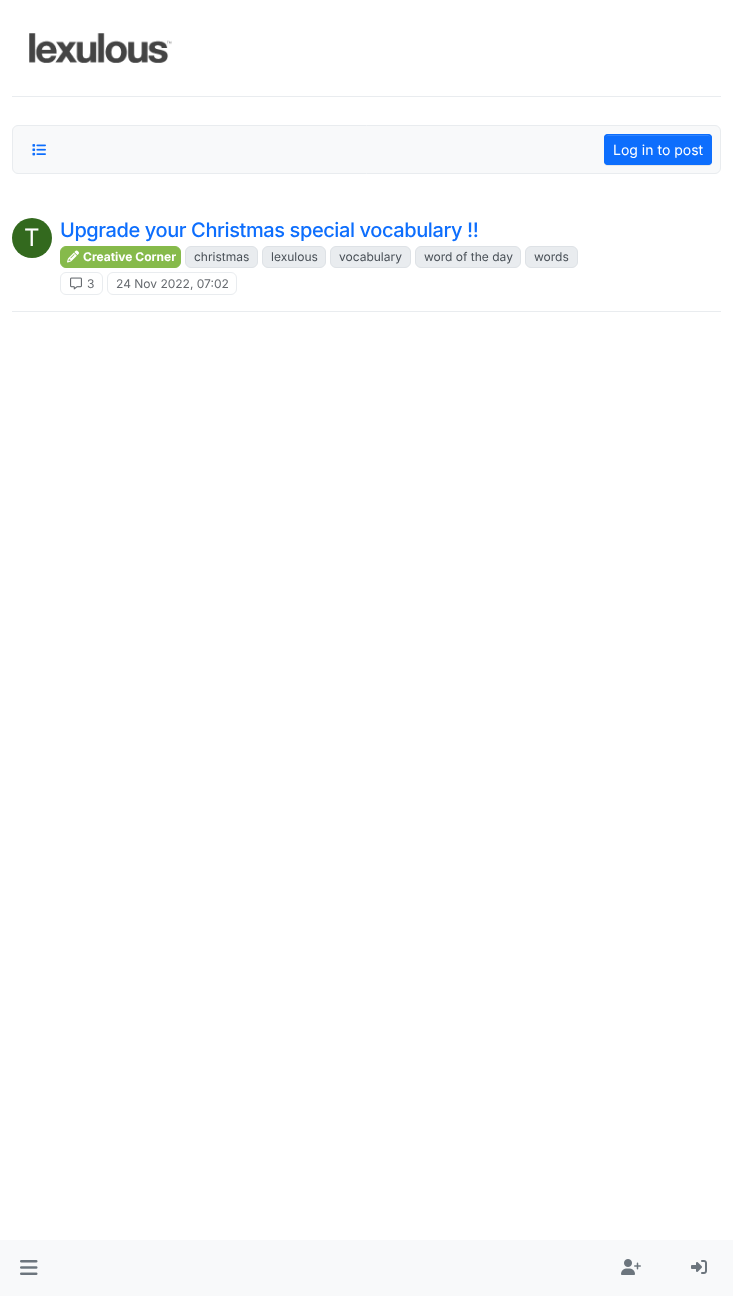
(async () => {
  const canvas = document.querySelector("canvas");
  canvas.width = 733;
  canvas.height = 1296;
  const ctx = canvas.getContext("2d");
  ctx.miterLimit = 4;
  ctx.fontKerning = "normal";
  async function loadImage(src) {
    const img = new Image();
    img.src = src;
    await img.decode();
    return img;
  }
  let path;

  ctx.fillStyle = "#ffffff";
  ctx.fillRect(0, 0, 733, 1296);
  ctx.fillStyle = "#e9ecef";
  ctx.fillRect(12, 96, 709, 1);
  ctx.drawImage(await loadImage("img/1.png"), 29, 33, 143, 30);
  ctx.fillStyle = "#f8f9fa";
  ctx.beginPath();
  ctx.roundRect(12.5, 125.5, 708, 48, 5.5);
  ctx.fill();
  ctx.strokeStyle = "#e9ecef";
  ctx.stroke();
  ctx.drawImage(await loadImage("img/2.png"), 32, 144, 14, 12);
  ctx.fillStyle = "rgba(0, 0, 0, 0.07)";
  ctx.filter = "blur(0.5px)";
  ctx.beginPath();
  ctx.roundRect(604, 135, 108, 31, 4);
  ctx.fill();
  ctx.filter = "none";
  ctx.fillStyle = "#0d6efd";
  ctx.beginPath();
  ctx.roundRect(604, 134, 108, 31, 4);
  ctx.fill();
  ctx.fillStyle = "#3184fd";
  path = new Path2D("M608 136H708C710 136 711 137 711 139C711 131 694 135 691 135H625C622 135 605 131 605 139C605 137 606 136 608 136Z");
  ctx.fill(path);
  ctx.beginPath();
  ctx.roundRect(604.5, 134.5, 107, 30, 3.5);
  ctx.strokeStyle = "#0d6efd";
  ctx.stroke();
  ctx.fillStyle = "#e9ecef";
  ctx.fillRect(12, 311, 709, 1);
  ctx.fillStyle = "#33691e";
  ctx.beginPath();
  ctx.arc(32, 238, 20, 0, Math.PI * 2);
  ctx.fill();
  ctx.fillStyle = "#86ba4b";
  ctx.beginPath();
  ctx.roundRect(60.5, 246.5, 120, 21, 5.5);
  ctx.fill();
  ctx.strokeStyle = "#86ba4b";
  ctx.stroke();
  ctx.drawImage(await loadImage("img/3.png"), 67, 250, 12, 13);
  ctx.fillStyle = "#e9ecef";
  ctx.beginPath();
  ctx.roundRect(185.5, 246.5, 72, 21, 5.5);
  ctx.fill();
  ctx.strokeStyle = "#dee2e6";
  ctx.stroke();
  ctx.beginPath();
  ctx.roundRect(262.5, 246.5, 63, 21, 5.5);
  ctx.fill();
  ctx.stroke();
  ctx.beginPath();
  ctx.roundRect(330.5, 246.5, 80, 21, 5.5);
  ctx.fill();
  ctx.stroke();
  ctx.beginPath();
  ctx.roundRect(415.5, 246.5, 105, 21, 5.5);
  ctx.fill();
  ctx.stroke();
  ctx.beginPath();
  ctx.roundRect(525.5, 246.5, 52, 21, 5.5);
  ctx.fill();
  ctx.stroke();
  ctx.beginPath();
  ctx.roundRect(60.5, 272.5, 42, 22, 5.5);
  ctx.strokeStyle = "#e9ecef";
  ctx.stroke();
  ctx.drawImage(await loadImage("img/4.png"), 70, 277, 12, 13);
  ctx.beginPath();
  ctx.roundRect(107.5, 272.5, 129, 22, 5.5);
  ctx.stroke();
  ctx.fillStyle = "#f8f9fa";
  ctx.fillRect(0, 1240, 733, 56);
  ctx.drawImage(await loadImage("img/5.png"), 20, 1260, 18, 15);
  ctx.drawImage(await loadImage("img/6.png"), 621, 1259, 20, 16);
  ctx.drawImage(await loadImage("img/7.png"), 691, 1260, 16, 14);
  ctx.font = "14px Inter";
  ctx.fillStyle = "#ffffff";
  ctx.fillText("Log in to post", 613, 155);
  ctx.font = "24px Inter";
  ctx.fillText("T", 24, 246);
  ctx.letterSpacing = "-0.4px";
  ctx.font = "500 20px Inter";
  ctx.fillStyle = "#0d6efd";
  ctx.fillText("Upgrade your Christmas special vocabulary !!", 60, 237);
  ctx.letterSpacing = "0px";
  ctx.font = "bold 12px Inter";
  ctx.fillStyle = "#ffffff";
  ctx.fillText("Creative Corner", 83, 261);
  ctx.font = "12px Inter";
  ctx.fillStyle = "#495057";
  for (const [text, x, y] of [
    ["christmas", 194, 261],
    ["lexulous", 271, 261],
    ["vocabulary", 339, 261],
    ["word of the day", 424, 261],
    ["words", 534, 261],
  ]) {
    ctx.fillText(text, x, y);
  }
  ctx.fillStyle = "#676b70";
  ctx.fillText("3", 87, 288);
  ctx.fillText("24 Nov 2022, 07:02", 116, 288);
})();
